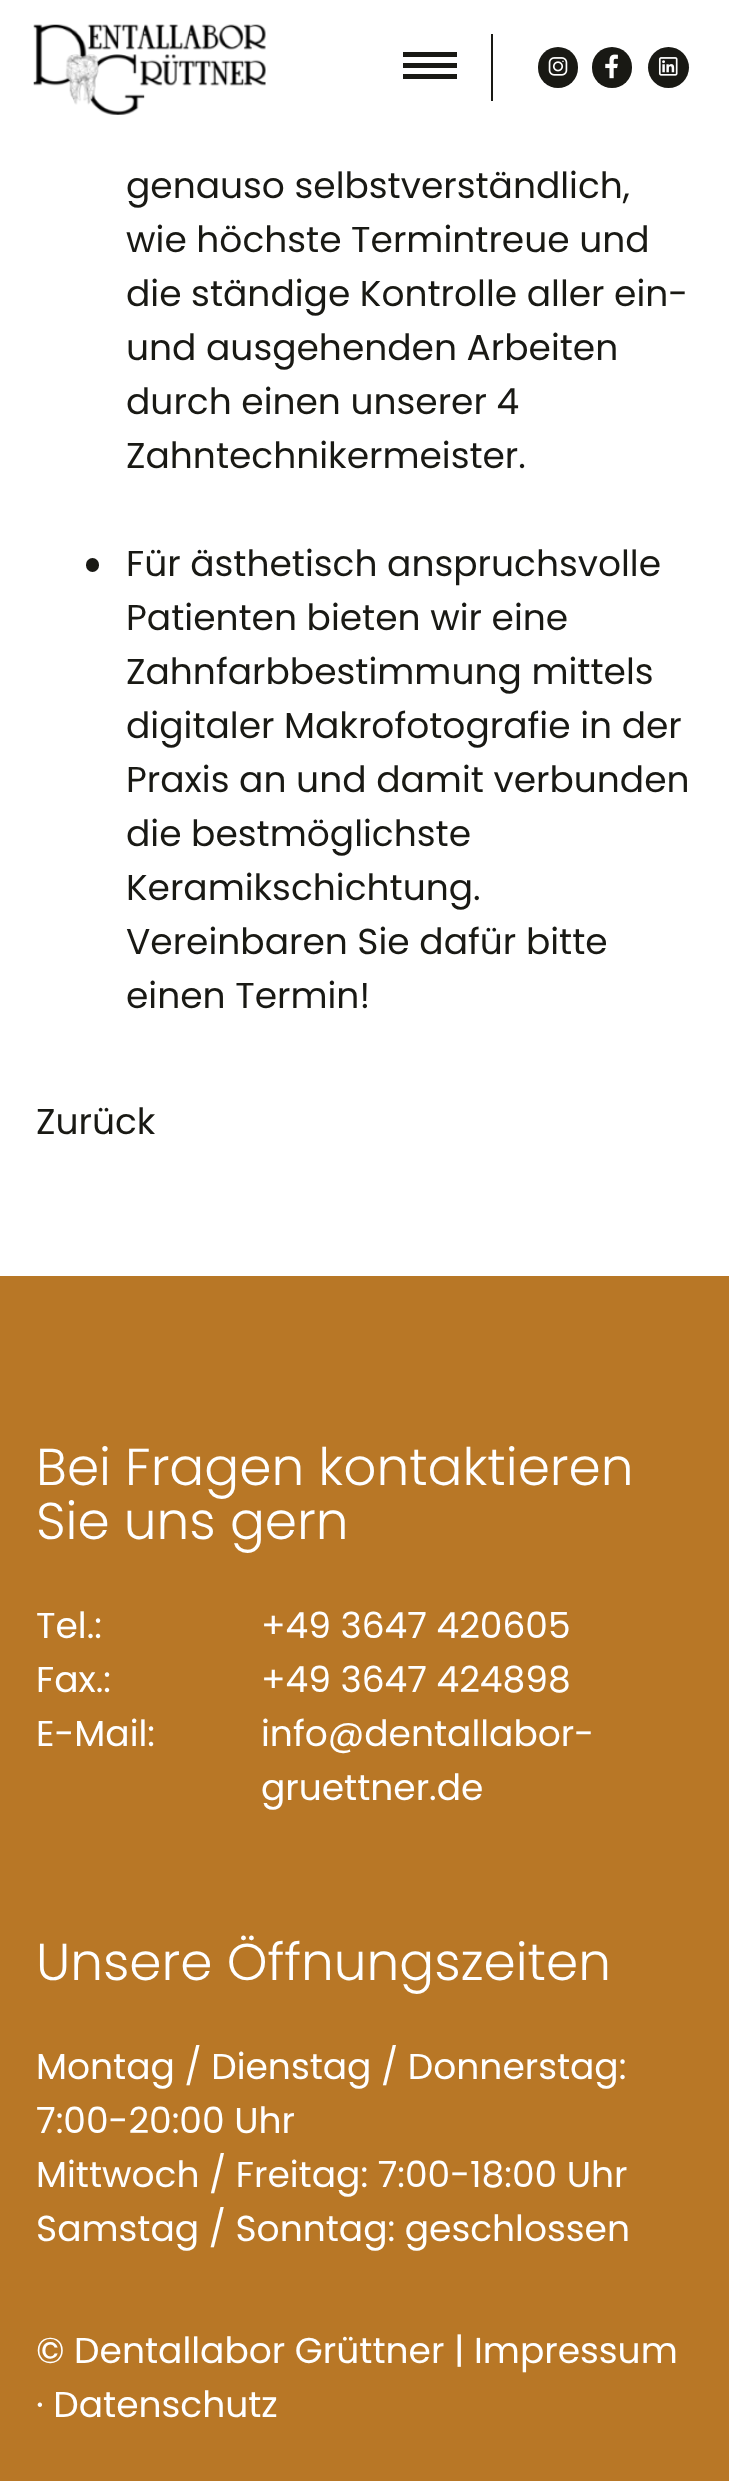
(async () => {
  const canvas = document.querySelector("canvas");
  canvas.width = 729;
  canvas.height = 2481;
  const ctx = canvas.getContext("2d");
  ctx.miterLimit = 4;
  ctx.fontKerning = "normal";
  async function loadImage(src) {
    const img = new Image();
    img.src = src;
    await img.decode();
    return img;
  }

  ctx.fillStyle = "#ffffff";
  ctx.fillRect(0, 0, 729, 2481);
  ctx.drawImage(await loadImage("img/1.png"), 33, 24, 233, 91);
  for (const [x, y, w, h, color] of [
    [491, 34, 2, 67, "#191914"],
    [403, 63, 54, 5, "#191914"],
    [403, 52, 54, 5, "#191914"],
    [403, 74, 54, 5, "#191914"],
  ]) {
    ctx.fillStyle = color;
    ctx.fillRect(x, y, w, h);
  }
  ctx.beginPath();
  ctx.roundRect(538, 47, 40, 41, 20);
  ctx.fill();
  ctx.drawImage(await loadImage("img/2.png"), 548, 57, 20, 19);
  ctx.beginPath();
  ctx.roundRect(592, 47, 40, 41, 20);
  ctx.fill();
  ctx.drawImage(await loadImage("img/3.png"), 605, 54, 13, 25);
  ctx.beginPath();
  ctx.arc(668.5, 67.5, 20.5, 0, Math.PI * 2);
  ctx.fill();
  ctx.drawImage(await loadImage("img/4.png"), 658, 57, 20, 19);
  ctx.beginPath();
  ctx.roundRect(86, 558, 13, 14, 6.5);
  ctx.fill();
  ctx.fillStyle = "#b87726";
  ctx.fillRect(0, 1276, 729, 1205);
  ctx.font = "36px Poppins";
  ctx.fillStyle = "#191914";
  for (const [text, x, y] of [
    ["genauso selbstverständlich,", 126, 198],
    ["wie höchste Termintreue und", 126, 252],
    ["die ständige Kontrolle aller ein-", 126, 306],
    ["und ausgehenden Arbeiten", 126, 360],
    ["durch einen unserer 4", 126, 414],
    ["Zahntechnikermeister.", 126, 468],
    ["Für ästhetisch anspruchsvolle", 126, 576],
    ["Patienten bieten wir eine", 126, 630],
    ["Zahnfarbbestimmung mittels", 126, 684],
    ["digitaler Makrofotografie in der", 126, 738],
    ["Praxis an und damit verbunden", 126, 792],
    ["die bestmöglichste", 126, 846],
    ["Keramikschichtung.", 126, 900],
    ["Vereinbaren Sie dafür bitte", 126, 954],
    ["einen Termin!", 126, 1008],
    ["Zurück", 36, 1134],
  ]) {
    ctx.fillText(text, x, y);
  }
  ctx.font = "300 51.75px Poppins";
  ctx.fillStyle = "#ffffff";
  ctx.fillText("Bei Fragen kontaktieren", 36, 1485);
  ctx.fillText("Sie uns gern", 36, 1539);
  ctx.font = "36px Poppins";
  for (const [text, x, y] of [
    ["Tel.:", 36, 1638],
    ["+49 3647 420605", 261, 1638],
    ["Fax.:", 36, 1692],
    ["+49 3647 424898", 261, 1692],
    ["E-Mail:", 36, 1746],
    ["info@dentallabor-", 261, 1746],
    ["gruettner.de", 261, 1800],
  ]) {
    ctx.fillText(text, x, y);
  }
  ctx.font = "300 51.75px Poppins";
  ctx.fillText("Unsere Öffnungszeiten", 36, 1980);
  ctx.font = "36px Poppins";
  for (const [text, x, y] of [
    ["Montag / Dienstag / Donnerstag:", 36, 2079],
    ["7:00-20:00 Uhr", 36, 2133],
    ["Mittwoch / Freitag: 7:00-18:00 Uhr", 36, 2187],
    ["Samstag / Sonntag: geschlossen", 36, 2241],
    ["© Dentallabor Grüttner | Impressum", 36, 2363],
    ["· Datenschutz", 36, 2417],
  ]) {
    ctx.fillText(text, x, y);
  }
})();
